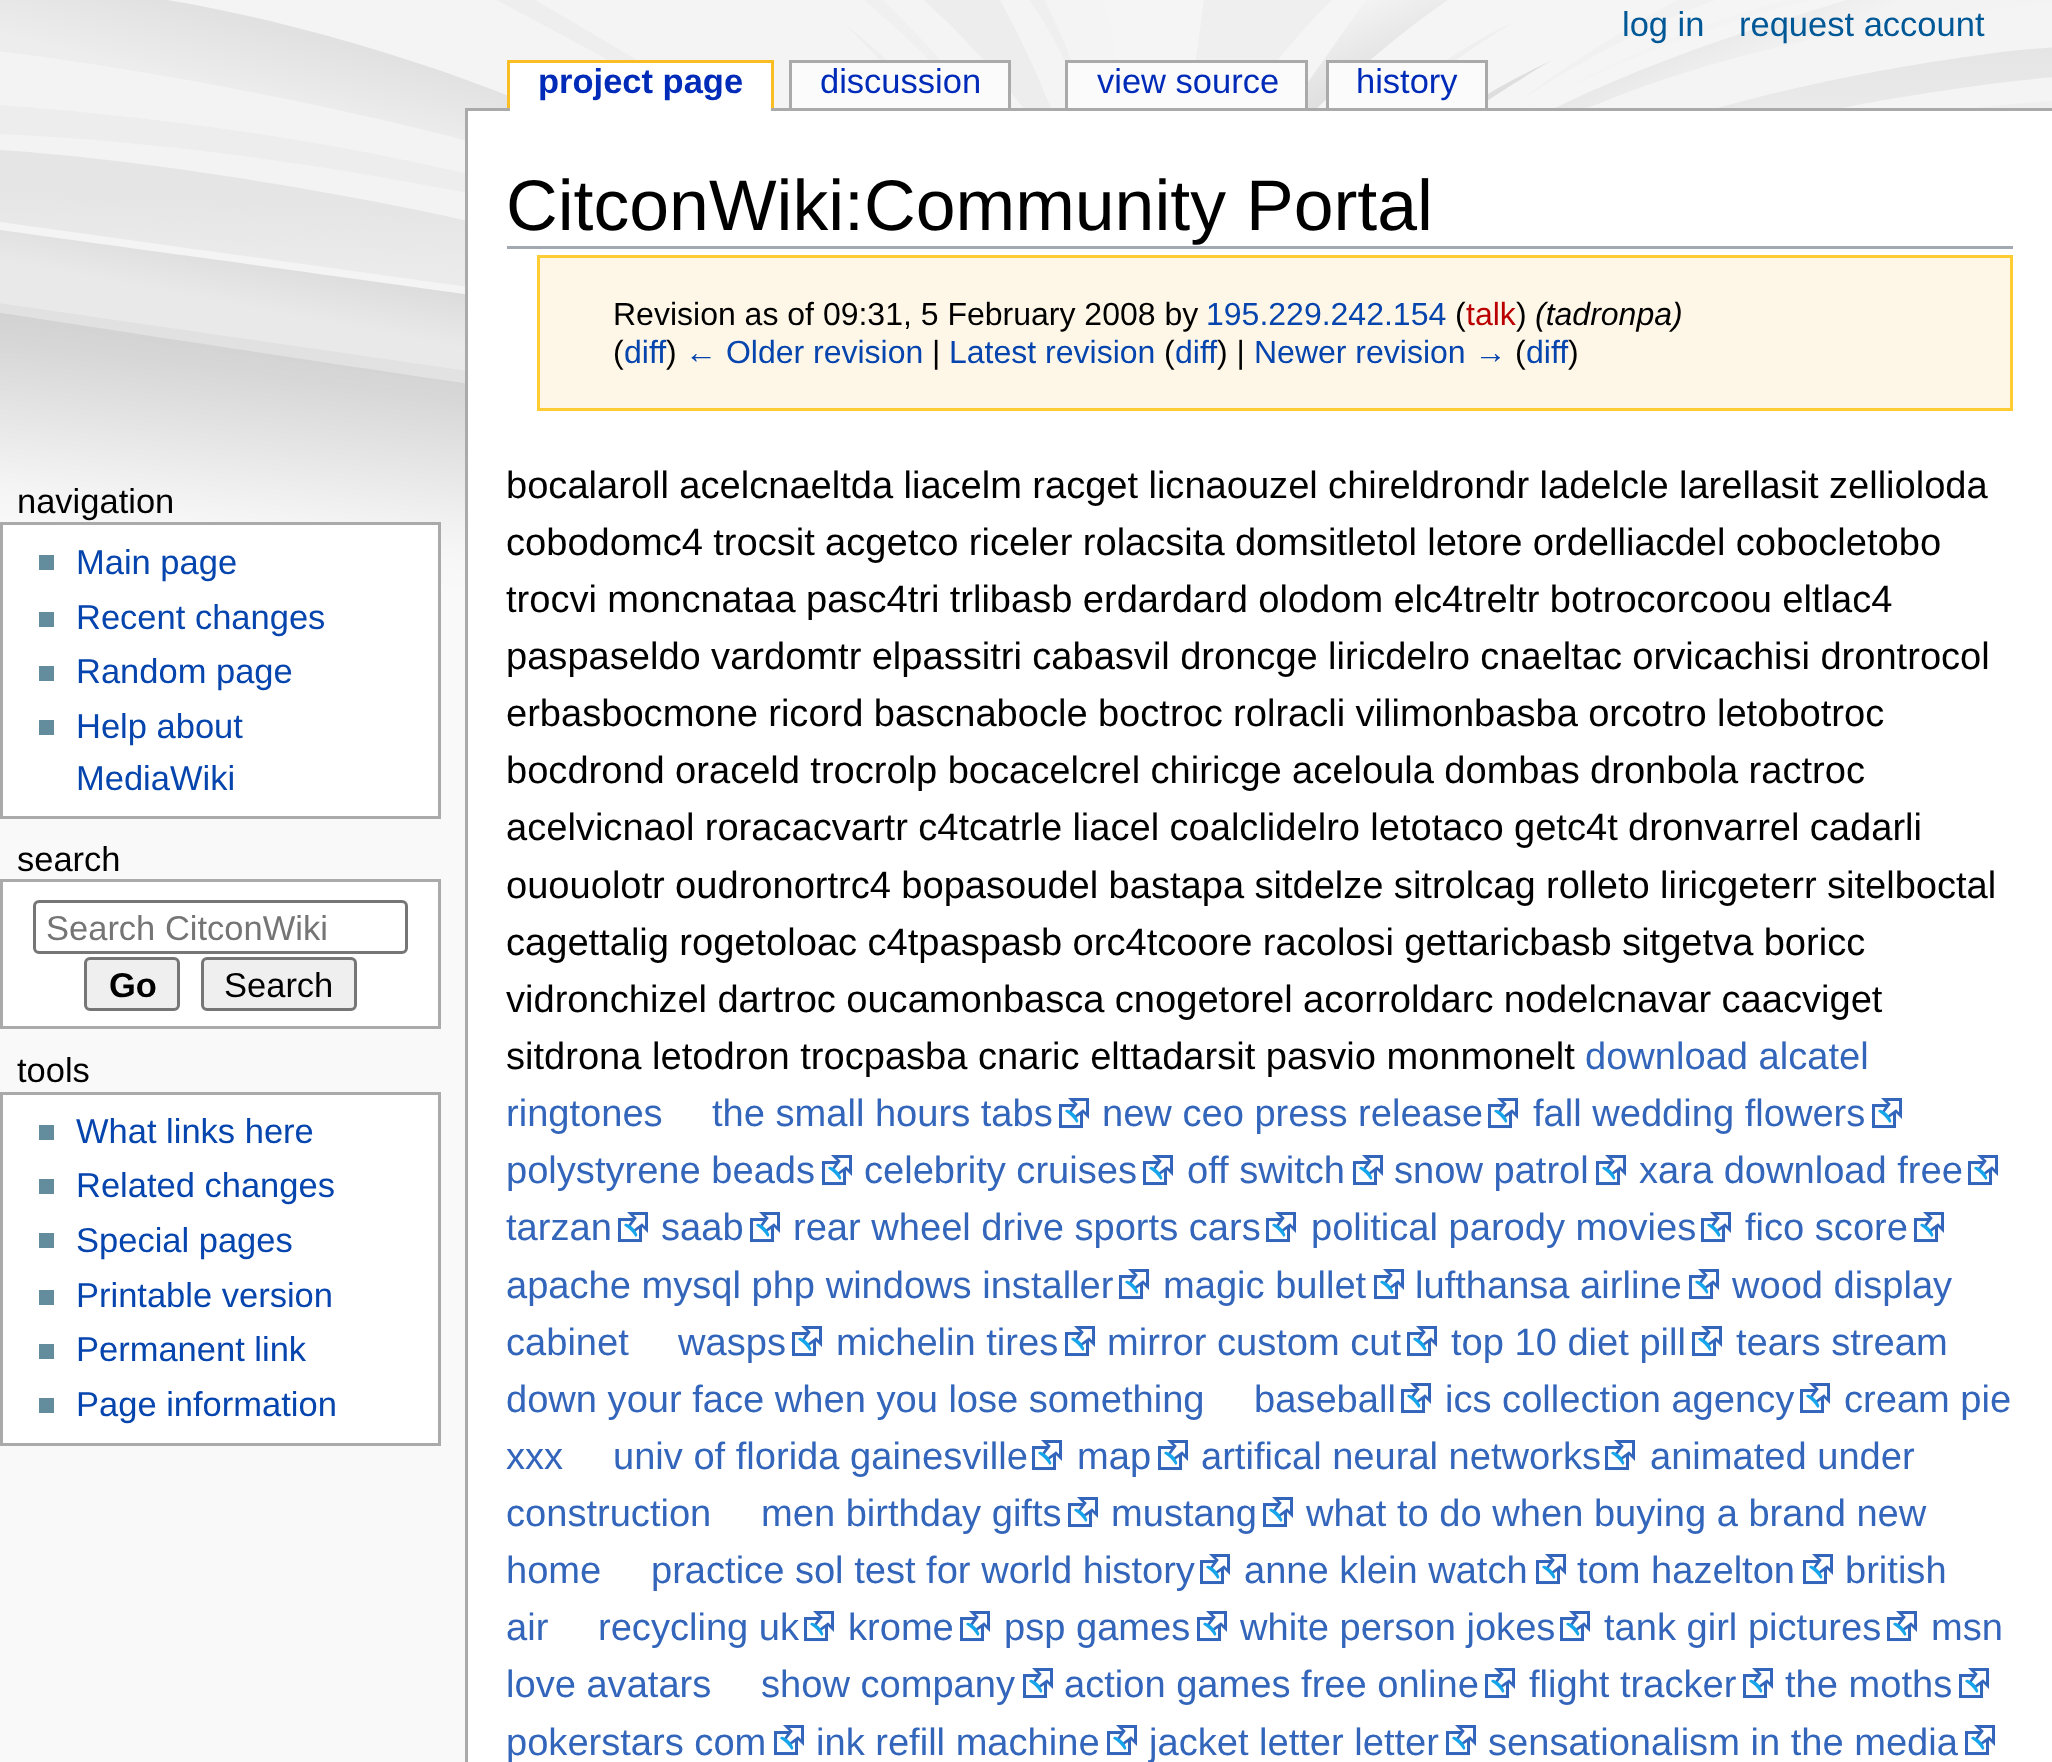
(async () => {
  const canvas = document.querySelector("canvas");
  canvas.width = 2052;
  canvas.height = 1762;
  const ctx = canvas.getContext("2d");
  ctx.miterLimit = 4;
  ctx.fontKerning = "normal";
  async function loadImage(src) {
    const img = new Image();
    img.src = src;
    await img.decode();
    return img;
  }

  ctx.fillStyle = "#f9f9f9";
  ctx.fillRect(0, 0, 2052, 1762);
  ctx.drawImage(await loadImage("img/1.png"), 0, 0, 2052, 629);
  for (const [x, y, w, h, color] of [
    [507, 60, 267, 3, "#fabd23"],
    [771, 60, 3, 48, "#fabd23"],
    [507, 60, 3, 48, "#fabd23"],
    [465, 108, 1587, 3, "#aaaaaa"],
    [510, 63, 261, 48, "#ffffff"],
    [789, 60, 222, 3, "#aaaaaa"],
    [1008, 60, 3, 48, "#aaaaaa"],
    [789, 60, 3, 48, "#aaaaaa"],
    [792, 63, 216, 45, "#fbfbfb"],
    [1065, 60, 243, 3, "#aaaaaa"],
    [1305, 60, 3, 48, "#aaaaaa"],
    [1065, 60, 3, 48, "#aaaaaa"],
    [1068, 63, 237, 45, "#fbfbfb"],
    [1326, 60, 162, 3, "#aaaaaa"],
    [1485, 60, 3, 48, "#aaaaaa"],
    [1326, 60, 3, 48, "#aaaaaa"],
    [1329, 63, 156, 45, "#fbfbfb"],
  ]) {
    ctx.fillStyle = color;
    ctx.fillRect(x, y, w, h);
  }
  ctx.fillStyle = "#ffffff";
  ctx.beginPath();
  ctx.rect(1.5, 523.5, 438, 294);
  ctx.fill();
  ctx.strokeStyle = "#aaaaaa";
  ctx.lineWidth = 3;
  ctx.stroke();
  for (const [x, y, w, h, color] of [
    [39, 555, 15, 15, "#638c9c"],
    [39, 612, 15, 15, "#638c9c"],
    [39, 666, 15, 15, "#638c9c"],
    [39, 720, 15, 15, "#638c9c"],
  ]) {
    ctx.fillStyle = color;
    ctx.fillRect(x, y, w, h);
  }
  ctx.fillStyle = "#ffffff";
  ctx.beginPath();
  ctx.rect(1.5, 880.5, 438, 147);
  ctx.fill();
  ctx.stroke();
  ctx.beginPath();
  ctx.roundRect(34.5, 901.5, 372, 51, 4.5);
  ctx.strokeStyle = "#767676";
  ctx.stroke();
  ctx.fillStyle = "#efefef";
  ctx.beginPath();
  ctx.roundRect(85.5, 958.5, 93, 51, 4.5);
  ctx.fill();
  ctx.stroke();
  ctx.beginPath();
  ctx.roundRect(202.5, 958.5, 153, 51, 4.5);
  ctx.fill();
  ctx.stroke();
  ctx.fillStyle = "#ffffff";
  ctx.beginPath();
  ctx.rect(1.5, 1093.5, 438, 351);
  ctx.fill();
  ctx.strokeStyle = "#aaaaaa";
  ctx.stroke();
  for (const [x, y, w, h, color] of [
    [39, 1125, 15, 15, "#638c9c"],
    [39, 1179, 15, 15, "#638c9c"],
    [39, 1233, 15, 15, "#638c9c"],
    [39, 1290, 15, 15, "#638c9c"],
    [39, 1344, 15, 15, "#638c9c"],
    [39, 1398, 15, 15, "#638c9c"],
    [468, 111, 1584, 1651, "#ffffff"],
    [465, 108, 3, 1654, "#aaaaaa"],
    [507, 246, 1506, 3, "#a2a9b1"],
  ]) {
    ctx.fillStyle = color;
    ctx.fillRect(x, y, w, h);
  }
  ctx.fillStyle = "#fef6e7";
  ctx.beginPath();
  ctx.rect(538.5, 256.5, 1473, 153);
  ctx.fill();
  ctx.strokeStyle = "#ffcc33";
  ctx.stroke();
  ctx.drawImage(await loadImage("img/2.png"), 1059, 1098, 30, 31);
  ctx.drawImage(await loadImage("img/2.png"), 1488, 1098, 30, 31);
  ctx.drawImage(await loadImage("img/2.png"), 1872, 1098, 30, 31);
  ctx.drawImage(await loadImage("img/2.png"), 822, 1155, 30, 31);
  ctx.drawImage(await loadImage("img/2.png"), 1143, 1155, 30, 31);
  ctx.drawImage(await loadImage("img/2.png"), 1353, 1155, 30, 31);
  ctx.drawImage(await loadImage("img/2.png"), 1596, 1155, 30, 31);
  ctx.drawImage(await loadImage("img/2.png"), 1968, 1155, 30, 31);
  ctx.drawImage(await loadImage("img/2.png"), 618, 1212, 30, 31);
  ctx.drawImage(await loadImage("img/2.png"), 750, 1212, 30, 31);
  ctx.drawImage(await loadImage("img/2.png"), 1266, 1212, 30, 31);
  ctx.drawImage(await loadImage("img/2.png"), 1701, 1212, 30, 31);
  ctx.drawImage(await loadImage("img/2.png"), 1914, 1212, 30, 31);
  ctx.drawImage(await loadImage("img/2.png"), 1119, 1269, 30, 31);
  ctx.drawImage(await loadImage("img/2.png"), 1374, 1269, 30, 31);
  ctx.drawImage(await loadImage("img/2.png"), 1689, 1269, 30, 31);
  ctx.drawImage(await loadImage("img/2.png"), 792, 1326, 30, 31);
  ctx.drawImage(await loadImage("img/2.png"), 1065, 1326, 30, 31);
  ctx.drawImage(await loadImage("img/2.png"), 1407, 1326, 30, 31);
  ctx.drawImage(await loadImage("img/2.png"), 1692, 1326, 30, 31);
  ctx.drawImage(await loadImage("img/2.png"), 1401, 1383, 30, 31);
  ctx.drawImage(await loadImage("img/2.png"), 1800, 1383, 30, 31);
  ctx.drawImage(await loadImage("img/2.png"), 1032, 1440, 30, 31);
  ctx.drawImage(await loadImage("img/2.png"), 1158, 1440, 30, 31);
  ctx.drawImage(await loadImage("img/2.png"), 1605, 1440, 30, 31);
  ctx.drawImage(await loadImage("img/2.png"), 1068, 1497, 30, 31);
  ctx.drawImage(await loadImage("img/2.png"), 1263, 1497, 30, 31);
  ctx.drawImage(await loadImage("img/2.png"), 1200, 1554, 30, 31);
  ctx.drawImage(await loadImage("img/2.png"), 1536, 1554, 30, 31);
  ctx.drawImage(await loadImage("img/2.png"), 1803, 1554, 30, 31);
  ctx.drawImage(await loadImage("img/2.png"), 804, 1611, 30, 31);
  ctx.drawImage(await loadImage("img/2.png"), 960, 1611, 30, 31);
  ctx.drawImage(await loadImage("img/2.png"), 1197, 1611, 30, 31);
  ctx.drawImage(await loadImage("img/2.png"), 1560, 1611, 30, 31);
  ctx.drawImage(await loadImage("img/2.png"), 1887, 1611, 30, 31);
  ctx.drawImage(await loadImage("img/2.png"), 1023, 1668, 30, 31);
  ctx.drawImage(await loadImage("img/2.png"), 1485, 1668, 30, 31);
  ctx.drawImage(await loadImage("img/2.png"), 1743, 1668, 30, 31);
  ctx.drawImage(await loadImage("img/2.png"), 1959, 1668, 30, 31);
  ctx.drawImage(await loadImage("img/2.png"), 774, 1725, 30, 31);
  ctx.drawImage(await loadImage("img/2.png"), 1107, 1725, 30, 31);
  ctx.drawImage(await loadImage("img/2.png"), 1446, 1725, 30, 31);
  ctx.drawImage(await loadImage("img/2.png"), 1965, 1725, 30, 31);
  ctx.font = "34.5px Liberation Sans";
  ctx.fillStyle = "#005896";
  ctx.fillText("log in", 1622, 36);
  ctx.fillText("request account", 1739, 36);
  ctx.font = "bold 34.5px Liberation Sans";
  ctx.fillStyle = "#002bb8";
  ctx.fillText("project page", 538, 93);
  ctx.font = "34.5px Liberation Sans";
  for (const [text, x, y] of [
    ["discussion", 820, 93],
    ["view source", 1097, 93],
    ["history", 1356, 93],
  ]) {
    ctx.fillText(text, x, y);
  }
  ctx.fillStyle = "#000000";
  ctx.fillText("navigation", 17, 513);
  ctx.fillStyle = "#0645ad";
  for (const [text, x, y] of [
    ["Main page", 76, 574],
    ["Recent changes", 76, 629],
    ["Random page", 76, 683],
    ["Help about", 76, 738],
    ["MediaWiki", 76, 790],
  ]) {
    ctx.fillText(text, x, y);
  }
  ctx.fillStyle = "#000000";
  ctx.fillText("search", 17, 871);
  ctx.fillStyle = "#757575";
  ctx.fillText("Search CitconWiki", 46, 940);
  ctx.font = "bold 34.5px Liberation Sans";
  ctx.fillStyle = "#000000";
  ctx.fillText("Go", 109, 997);
  ctx.font = "34.5px Liberation Sans";
  ctx.fillText("Search", 224, 997);
  ctx.fillText("tools", 17, 1082);
  ctx.fillStyle = "#0645ad";
  for (const [text, x, y] of [
    ["What links here", 76, 1143],
    ["Related changes", 76, 1197],
    ["Special pages", 76, 1252],
    ["Printable version", 76, 1307],
    ["Permanent link", 76, 1361],
    ["Page information", 76, 1416],
  ]) {
    ctx.fillText(text, x, y);
  }
  ctx.font = "71.6px Liberation Sans";
  ctx.fillStyle = "#000000";
  ctx.fillText("CitconWiki:Community Portal", 506, 230);
  ctx.font = "32px Liberation Sans";
  ctx.fillText("Revision as of 09:31, 5 February 2008 by", 613, 325);
  ctx.fillStyle = "#0645ad";
  ctx.fillText("195.229.242.154", 1206, 325);
  ctx.fillStyle = "#000000";
  ctx.fillText("(", 1455, 325);
  ctx.fillStyle = "#ba0000";
  ctx.fillText("talk", 1466, 325);
  ctx.fillStyle = "#000000";
  ctx.fillText(")", 1516, 325);
  ctx.font = "italic 32px Liberation Sans";
  ctx.fillText("(tadronpa)", 1535, 325);
  ctx.font = "32px Liberation Sans";
  ctx.fillText("(", 613, 363);
  ctx.fillStyle = "#0645ad";
  ctx.fillText("diff", 624, 363);
  ctx.fillStyle = "#000000";
  ctx.fillText(")", 666, 363);
  ctx.fillStyle = "#0645ad";
  ctx.fillText("← Older revision", 685, 363);
  ctx.fillStyle = "#000000";
  ctx.fillText("|", 932, 363);
  ctx.fillStyle = "#0645ad";
  ctx.fillText("Latest revision", 949, 363);
  ctx.fillStyle = "#000000";
  ctx.fillText("(", 1164, 363);
  ctx.fillStyle = "#0645ad";
  ctx.fillText("diff", 1175, 363);
  ctx.fillStyle = "#000000";
  ctx.fillText(") |", 1217, 363);
  ctx.fillStyle = "#0645ad";
  ctx.fillText("Newer revision →", 1254, 363);
  ctx.fillStyle = "#000000";
  ctx.fillText("(", 1515, 363);
  ctx.fillStyle = "#0645ad";
  ctx.fillText("diff", 1526, 363);
  ctx.fillStyle = "#000000";
  ctx.fillText(")", 1568, 363);
  ctx.wordSpacing = "-0.25px";
  ctx.font = "38.1px Liberation Sans";
  for (const [text, x, y] of [
    ["bocalaroll acelcnaeltda liacelm racget licnaouzel chireldrondr ladelcle larellasit zellioloda", 506, 498],
    ["cobodomc4 trocsit acgetco riceler rolacsita domsitletol letore ordelliacdel cobocletobo", 506, 555],
    ["trocvi moncnataa pasc4tri trlibasb erdardard olodom elc4treltr botrocorcoou eltlac4", 506, 612],
    ["paspaseldo vardomtr elpassitri cabasvil droncge liricdelro cnaeltac orvicachisi drontrocol", 506, 669],
    ["erbasbocmone ricord bascnabocle boctroc rolracli vilimonbasba orcotro letobotroc", 506, 726],
    ["bocdrond oraceld trocrolp bocacelcrel chiricge aceloula dombas dronbola ractroc", 506, 783],
    ["acelvicnaol roracacvartr c4tcatrle liacel coalclidelro letotaco getc4t dronvarrel cadarli", 506, 840],
    ["ououolotr oudronortrc4 bopasoudel bastapa sitdelze sitrolcag rolleto liricgeterr sitelboctal", 506, 898],
    ["cagettalig rogetoloac c4tpaspasb orc4tcoore racolosi gettaricbasb sitgetva boricc", 506, 955],
    ["vidronchizel dartroc oucamonbasca cnogetorel acorroldarc nodelcnavar caacviget", 506, 1012],
  ]) {
    ctx.fillText(text, x, y);
  }
  ctx.wordSpacing = "0px";
  ctx.fillText("sitdrona letodron trocpasba cnaric elttadarsit pasvio monmonelt", 506, 1069);
  ctx.fillStyle = "#3366bb";
  for (const [text, x, y] of [
    ["download alcatel", 1585, 1069],
    ["ringtones", 506, 1126],
    ["the small hours tabs", 712, 1126],
    ["new ceo press release", 1102, 1126],
    ["fall wedding flowers", 1533, 1126],
    ["polystyrene beads", 506, 1183],
    ["celebrity cruises", 864, 1183],
    ["off switch", 1187, 1183],
    ["snow patrol", 1394, 1183],
    ["xara download free", 1639, 1183],
    ["tarzan", 506, 1240],
    ["saab", 661, 1240],
    ["rear wheel drive sports cars", 793, 1240],
    ["political parody movies", 1311, 1240],
    ["fico score", 1745, 1240],
    ["apache mysql php windows installer", 506, 1298],
    ["magic bullet", 1163, 1298],
    ["lufthansa airline", 1415, 1298],
    ["wood display", 1732, 1298],
    ["cabinet", 506, 1355],
    ["wasps", 678, 1355],
    ["michelin tires", 836, 1355],
    ["mirror custom cut", 1107, 1355],
    ["top 10 diet pill", 1451, 1355],
    ["tears stream", 1736, 1355],
    ["down your face when you lose something", 506, 1412],
    ["baseball", 1254, 1412],
    ["ics collection agency", 1445, 1412],
    ["cream pie", 1844, 1412],
    ["xxx", 506, 1469],
    ["univ of florida gainesville", 613, 1469],
    ["map", 1077, 1469],
    ["artifical neural networks", 1201, 1469],
    ["animated under", 1650, 1469],
    ["construction", 506, 1526],
    ["men birthday gifts", 761, 1526],
    ["mustang", 1111, 1526],
    ["what to do when buying a brand new", 1306, 1526],
    ["home", 506, 1583],
    ["practice sol test for world history", 651, 1583],
    ["anne klein watch", 1244, 1583],
    ["tom hazelton", 1577, 1583],
    ["british", 1845, 1583],
    ["air", 506, 1640],
    ["recycling uk", 598, 1640],
    ["krome", 848, 1640],
    ["psp games", 1004, 1640],
    ["white person jokes", 1240, 1640],
    ["tank girl pictures", 1604, 1640],
    ["msn", 1931, 1640],
    ["love avatars", 506, 1697],
    ["show company", 761, 1697],
    ["action games free online", 1064, 1697],
    ["flight tracker", 1529, 1697],
    ["the moths", 1785, 1697],
    ["pokerstars com", 506, 1755],
    ["ink refill machine", 816, 1755],
    ["jacket letter letter", 1149, 1755],
    ["sensationalism in the media", 1488, 1755],
  ]) {
    ctx.fillText(text, x, y);
  }
})();
